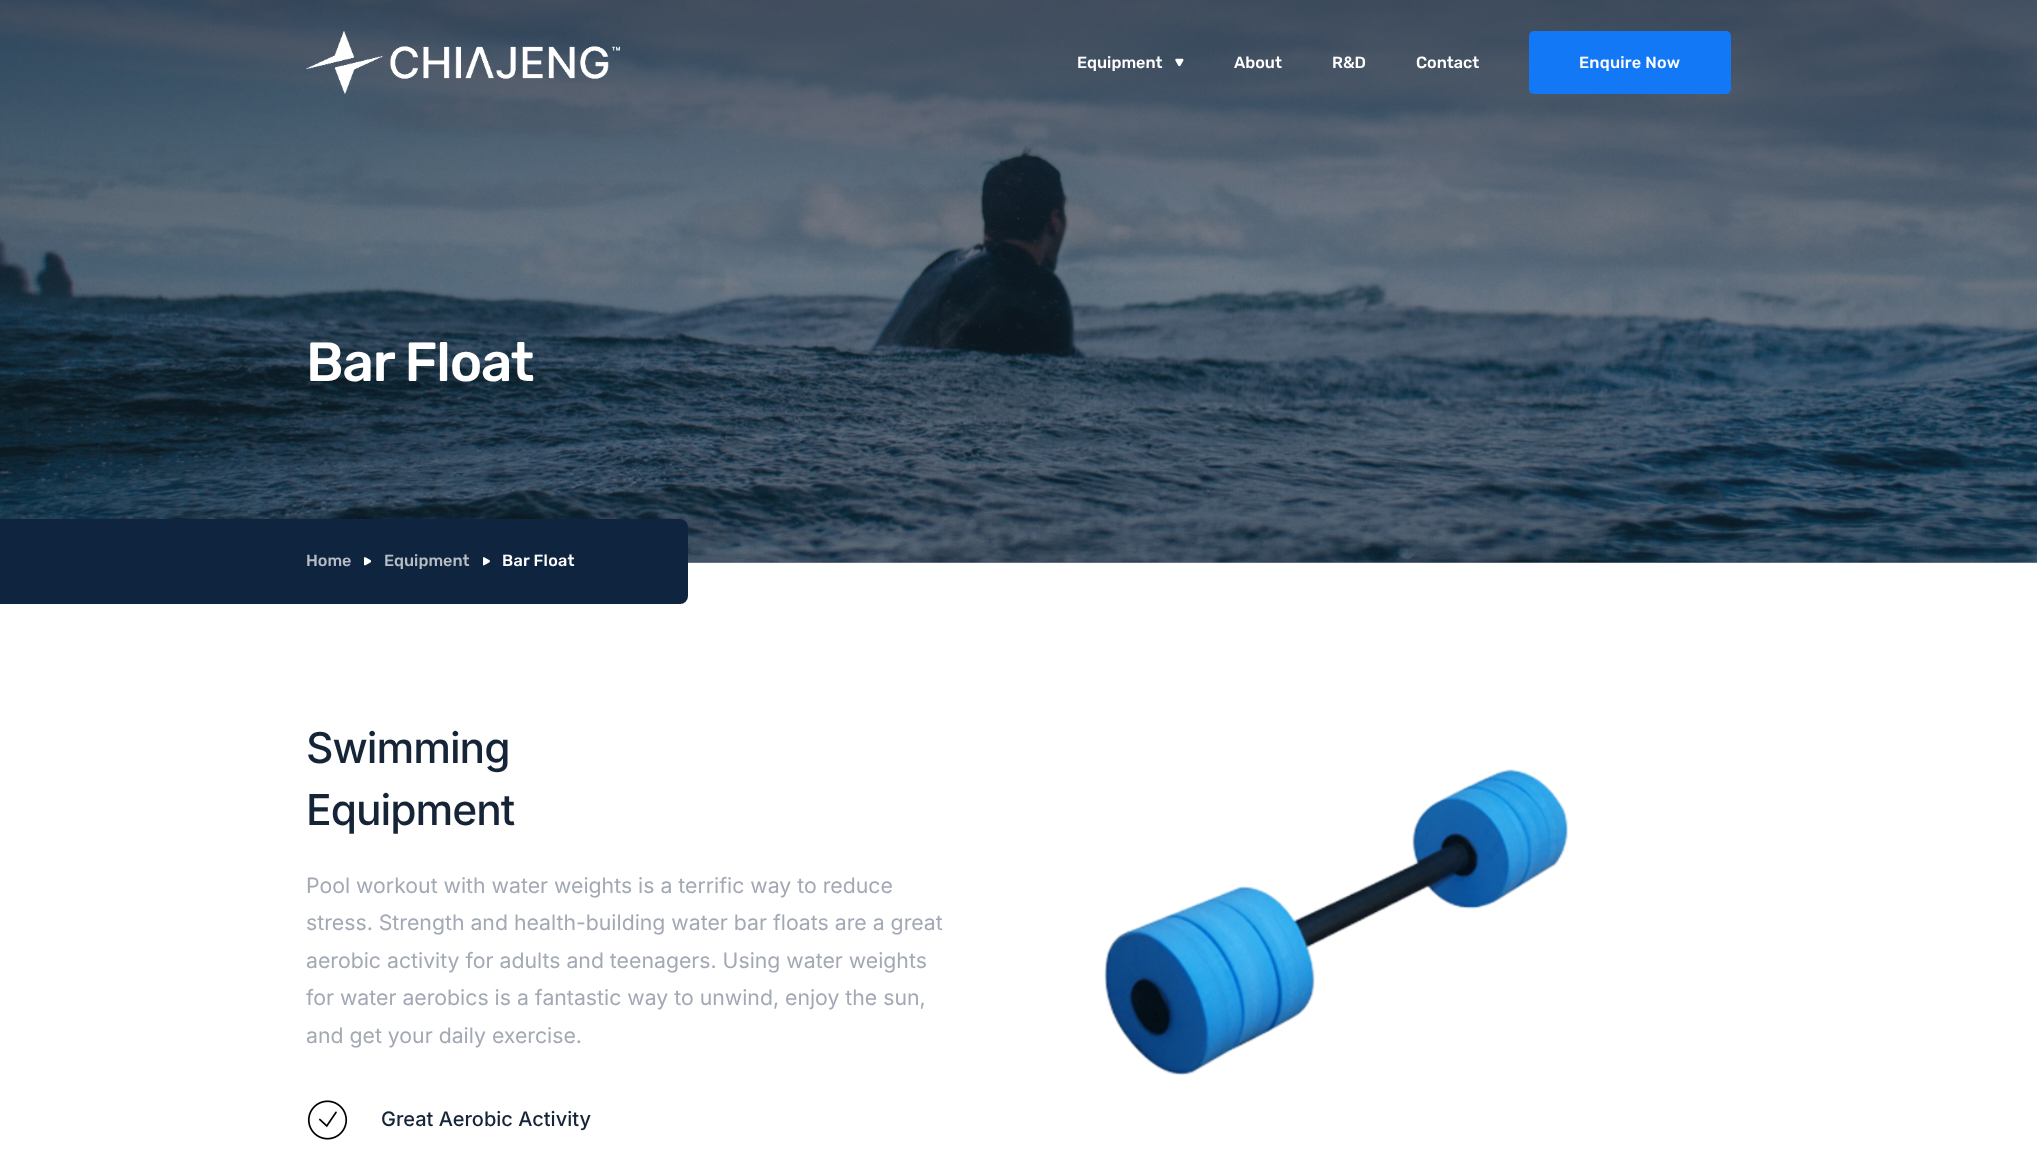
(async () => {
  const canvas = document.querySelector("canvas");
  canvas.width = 2037;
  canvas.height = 1159;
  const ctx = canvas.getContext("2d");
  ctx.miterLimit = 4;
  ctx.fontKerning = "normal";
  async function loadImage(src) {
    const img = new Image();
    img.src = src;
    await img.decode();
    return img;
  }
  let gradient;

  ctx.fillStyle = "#ffffff";
  ctx.fillRect(0, 0, 2037, 1159);
  ctx.drawImage(await loadImage("img/3.png"), 0, 0, 2037, 563);
  gradient = ctx.createLinearGradient(1019, 0, 1019, 563);
  gradient.addColorStop(0, "rgba(22, 36, 56, 0.75)");
  gradient.addColorStop(0.5, "rgba(22, 36, 56, 0.5)");
  ctx.fillStyle = gradient;
  ctx.fillRect(0, 0, 2037, 563);
  ctx.drawImage(await loadImage("img/1.png"), 306, 31, 314, 63);
  ctx.drawImage(await loadImage("img/2.png"), 1175, 58, 9, 9);
  ctx.fillStyle = "#1378f5";
  ctx.beginPath();
  ctx.roundRect(1529, 31, 202, 63, 5);
  ctx.fill();
  ctx.fillStyle = "#0e243f";
  ctx.beginPath();
  ctx.roundRect(288, 519, 400, 85, [0, 8, 8, 0]);
  ctx.fill();
  ctx.fillRect(0, 519, 288, 85);
  ctx.drawImage(await loadImage("img/4.png"), 364, 557, 7, 9);
  ctx.drawImage(await loadImage("img/5.png"), 483, 557, 7, 9);
  ctx.drawImage(await loadImage("img/6.png"), 307, 1100, 41, 40);
  ctx.drawImage(await loadImage("img/7.png"), 1104, 769, 464, 306);
  ctx.font = "500 16.25px Rubik";
  ctx.fillStyle = "#ffffff";
  for (const [text, x, y] of [
    ["Equipment", 1077, 68],
    ["About", 1234, 68],
    ["R&D", 1332, 68],
    ["Contact", 1416, 68],
  ]) {
    ctx.fillText(text, x, y);
  }
  ctx.letterSpacing = "0.25px";
  ctx.fillText("Enquire Now", 1579, 68);
  ctx.letterSpacing = "-1.25px";
  ctx.font = "500 55px Rubik";
  ctx.fillText("Bar Float", 306, 381);
  ctx.letterSpacing = "0px";
  ctx.font = "500 16.25px Rubik";
  ctx.fillStyle = "#b7bdc5";
  ctx.fillText("Home", 306, 566);
  ctx.fillText("Equipment", 384, 566);
  ctx.letterSpacing = "0.25px";
  ctx.fillStyle = "#ffffff";
  ctx.fillText("Bar Float", 502, 566);
  ctx.letterSpacing = "-1px";
  ctx.font = "500 42.5px Inter";
  ctx.fillStyle = "#162438";
  ctx.fillText("Swimming", 306, 763);
  ctx.fillText("Equipment", 306, 825);
  ctx.letterSpacing = "0px";
  ctx.font = "21.25px Inter";
  ctx.fillStyle = "#a2a9b4";
  for (const [text, x, y] of [
    ["Pool workout with water weights is a terrific way to reduce", 306, 893],
    ["stress. Strength and health-building water bar floats are a great", 306, 930],
    ["aerobic activity for adults and teenagers. Using water weights", 306, 968],
    ["for water aerobics is a fantastic way to unwind, enjoy the sun,", 306, 1005],
    ["and get your daily exercise.", 306, 1043],
  ]) {
    ctx.fillText(text, x, y);
  }
  ctx.font = "500 20px Inter";
  ctx.fillStyle = "#162438";
  ctx.fillText("Great Aerobic Activity", 381, 1126);
})();
